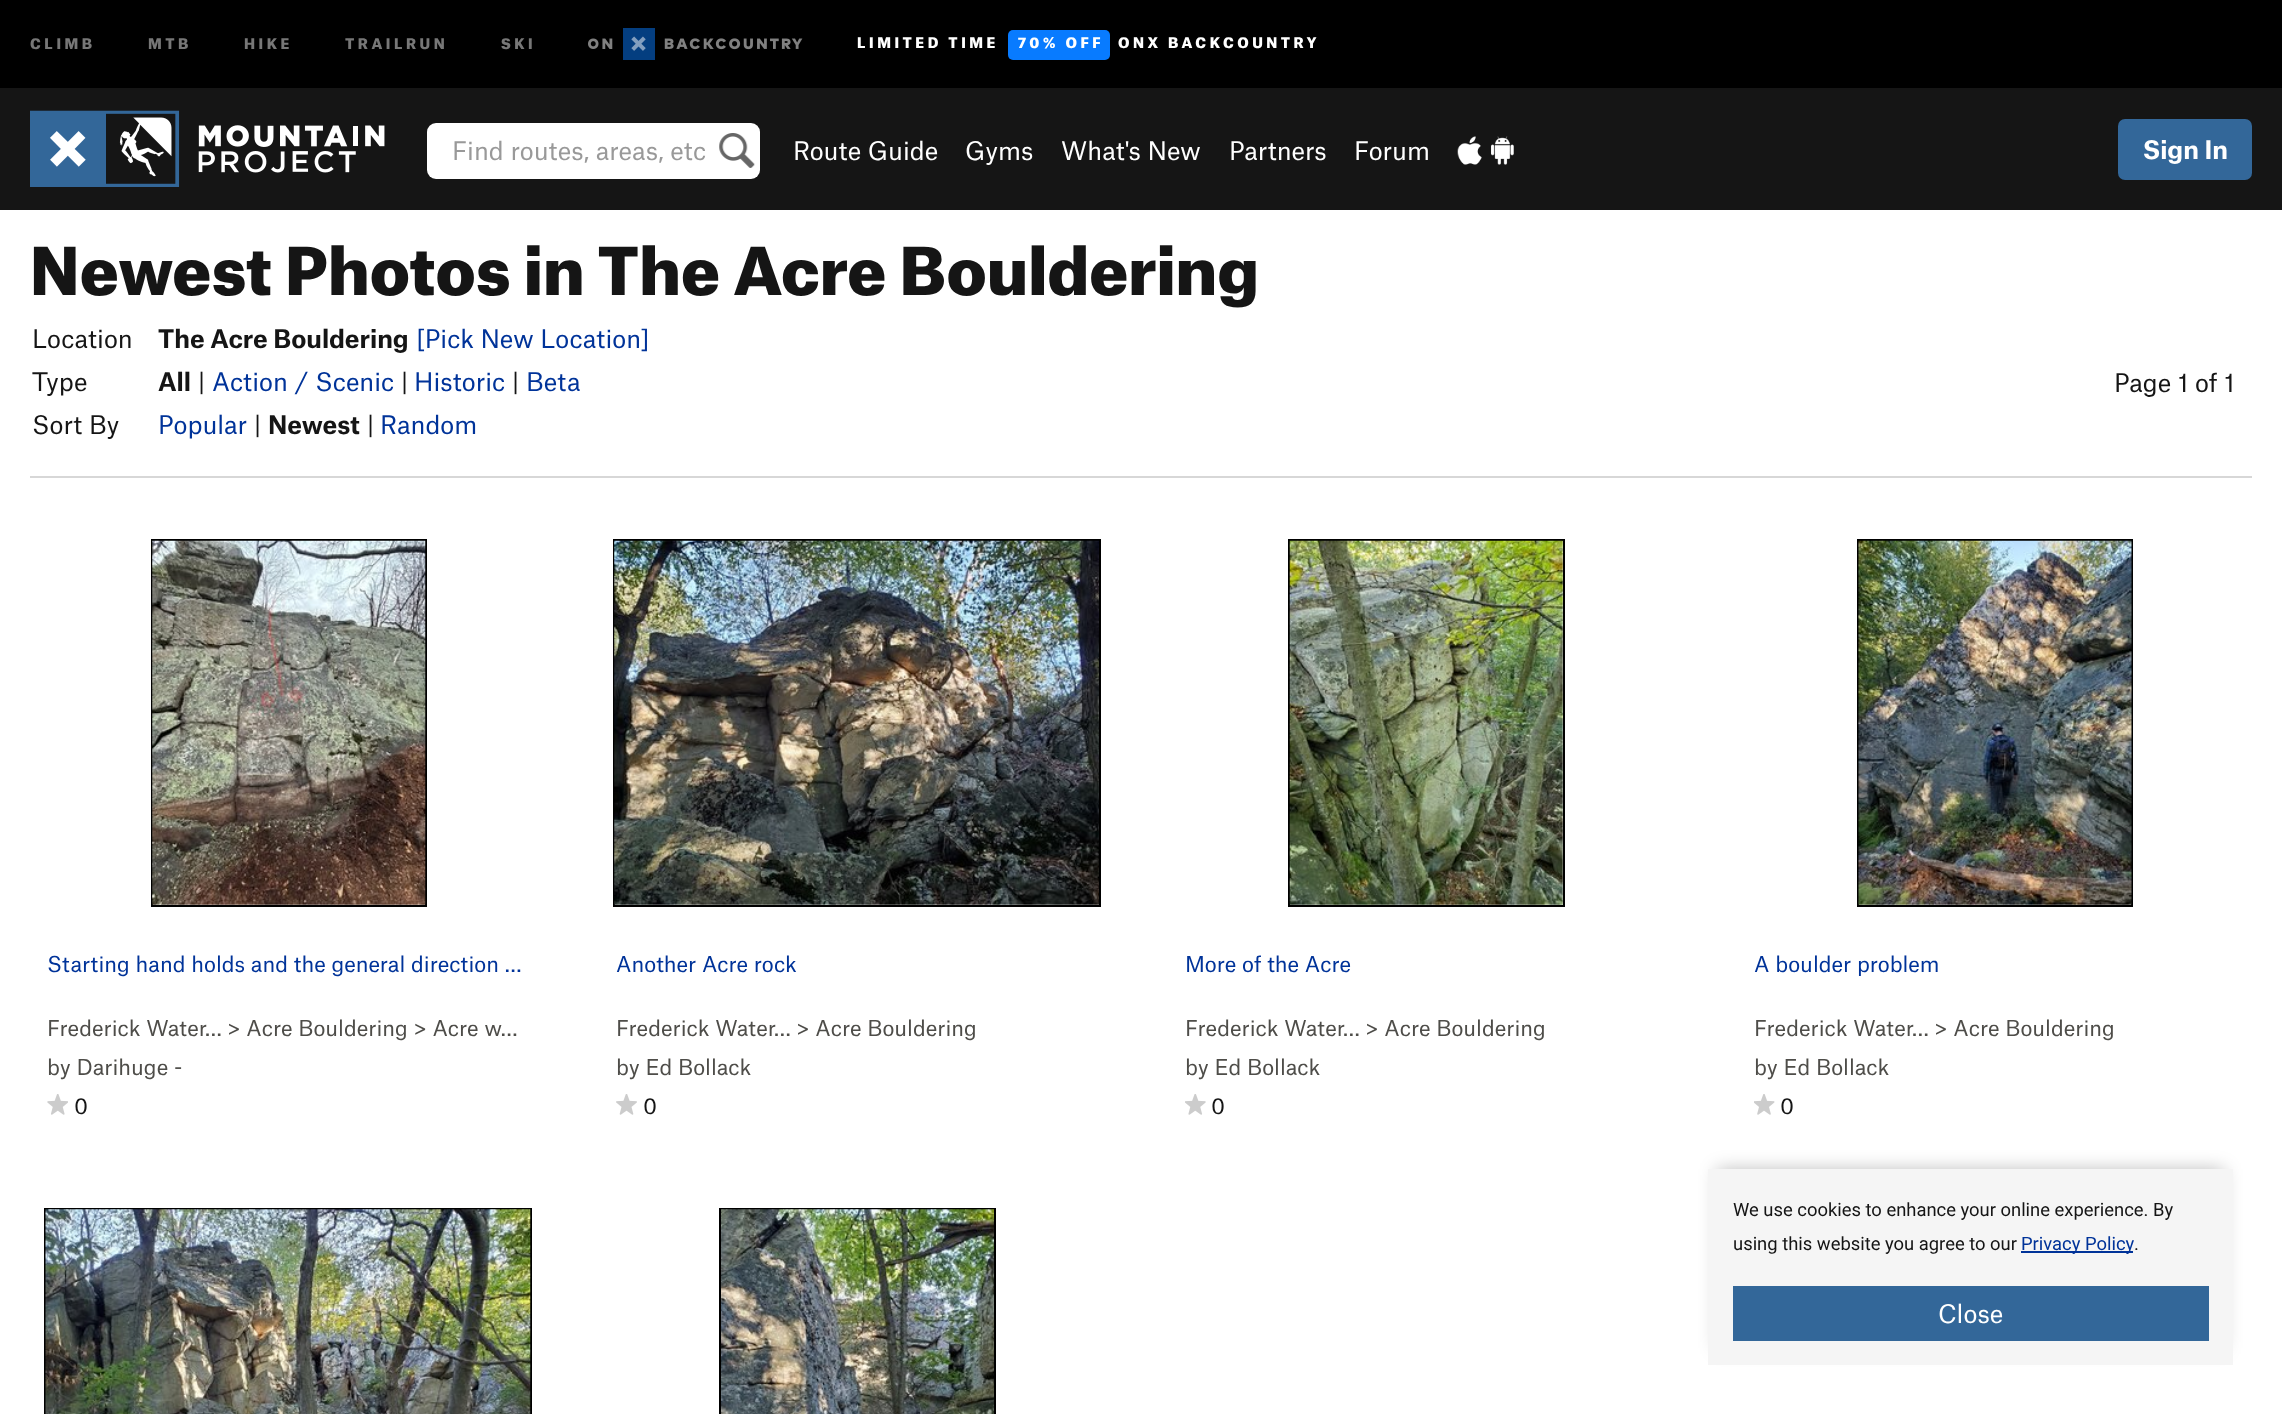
(async () => {
  const canvas = document.querySelector("canvas");
  canvas.width = 2282;
  canvas.height = 1414;
  const ctx = canvas.getContext("2d");
  ctx.miterLimit = 4;
  ctx.fontKerning = "normal";
  async function loadImage(src) {
    const img = new Image();
    img.src = src;
    await img.decode();
    return img;
  }

  ctx.fillStyle = "#ffffff";
  ctx.fillRect(0, 0, 2282, 1414);
  ctx.fillStyle = "#151515";
  ctx.fillRect(0, 88, 2282, 122);
  ctx.fillStyle = "#000000";
  ctx.fillRect(0, 0, 2282, 88);
  ctx.drawImage(await loadImage("img/1.png"), 588, 28, 215, 32);
  ctx.fillStyle = "#087bff";
  ctx.beginPath();
  ctx.roundRect(1008, 30, 102, 30, 5);
  ctx.fill();
  ctx.drawImage(await loadImage("img/2.png"), 30, 110, 355, 77);
  ctx.fillStyle = "#ffffff";
  ctx.beginPath();
  ctx.roundRect(427, 123, 333, 56, 9);
  ctx.fill();
  ctx.drawImage(await loadImage("img/3.png"), 719, 133, 36, 35);
  ctx.drawImage(await loadImage("img/4.png"), 1457, 136, 25, 29);
  ctx.drawImage(await loadImage("img/5.png"), 1491, 136, 23, 29);
  ctx.fillStyle = "#336799";
  ctx.beginPath();
  ctx.roundRect(2118, 119, 134, 61, 7);
  ctx.fill();
  ctx.fillStyle = "#d7d7d7";
  ctx.fillRect(30, 476, 2222, 2);
  ctx.strokeStyle = "#000000";
  ctx.lineWidth = 2;
  ctx.strokeRect(152, 540, 274, 366);
  ctx.drawImage(await loadImage("img/6.png"), 152, 540, 274, 365);
  ctx.drawImage(await loadImage("img/7.png"), 47, 1094, 21, 21);
  ctx.strokeRect(614, 540, 486, 366);
  ctx.drawImage(await loadImage("img/8.png"), 614, 540, 485, 365);
  ctx.drawImage(await loadImage("img/9.png"), 616, 1094, 21, 21);
  ctx.strokeRect(1289, 540, 275, 366);
  ctx.drawImage(await loadImage("img/10.png"), 1289, 540, 274, 365);
  ctx.drawImage(await loadImage("img/11.png"), 1185, 1094, 21, 21);
  ctx.strokeRect(1858, 540, 274, 366);
  ctx.drawImage(await loadImage("img/12.png"), 1858, 540, 274, 365);
  ctx.drawImage(await loadImage("img/13.png"), 1754, 1094, 21, 21);
  ctx.strokeRect(45, 1209, 486, 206);
  ctx.drawImage(await loadImage("img/14.png"), 45, 1209, 486, 205);
  ctx.strokeRect(720, 1209, 275, 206);
  ctx.drawImage(await loadImage("img/15.png"), 721, 1209, 273, 205);
  ctx.fillStyle = "rgba(0, 0, 0, 0.25)";
  ctx.filter = "blur(9px)";
  ctx.beginPath();
  ctx.rect(1717, 1169, 507, 179);
  ctx.fill();
  ctx.filter = "none";
  for (const [x, y, w, h, color] of [
    [1708, 1169, 525, 196, "#f5f5f5"],
    [2021, 1251, 112, 2, "#003399"],
    [1733, 1286, 476, 55, "#336799"],
  ]) {
    ctx.fillStyle = color;
    ctx.fillRect(x, y, w, h);
  }
  ctx.letterSpacing = "3.5px";
  ctx.font = "900 14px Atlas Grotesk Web";
  ctx.fillStyle = "#777777";
  for (const [text, x, y] of [
    ["CLIMB", 30, 49],
    ["MTB", 148, 49],
    ["HIKE", 244, 49],
    ["TRAILRUN", 345, 49],
    ["SKI", 501, 49],
  ]) {
    ctx.fillText(text, x, y);
  }
  ctx.fillStyle = "#ffffff";
  for (const [text, x, y] of [
    ["LIMITED TIME", 857, 48],
    ["70% OFF", 1018, 48],
    ["ONX BACKCOUNTRY", 1118, 48],
  ]) {
    ctx.fillText(text, x, y);
  }
  ctx.letterSpacing = "0px";
  ctx.font = "24.5px Atlas Grotesk Web";
  ctx.fillStyle = "#999999";
  ctx.fillText("Find routes, areas, etc", 452, 160);
  ctx.fillStyle = "#ffffff";
  for (const [text, x, y] of [
    ["Route Guide", 793, 160],
    ["Gyms", 965, 160],
    ["What's New", 1061, 160],
    ["Partners", 1229, 160],
    ["Forum", 1354, 160],
  ]) {
    ctx.fillText(text, x, y);
  }
  ctx.font = "bold 24.5px Atlas Grotesk Web";
  ctx.fillText("Sign In", 2143, 159);
  ctx.font = "900 63px Atlas Grotesk Web";
  ctx.fillStyle = "#151515";
  ctx.fillText("Newest Photos in The Acre Bouldering", 30, 295);
  ctx.font = "24.5px Atlas Grotesk Web";
  ctx.fillText("Location", 32, 348);
  ctx.font = "bold 24.5px Atlas Grotesk Web";
  ctx.fillText("The Acre Bouldering", 158, 348);
  ctx.font = "24.5px Atlas Grotesk Web";
  ctx.fillStyle = "#003399";
  ctx.fillText("[Pick New Location]", 416, 348);
  ctx.fillStyle = "#151515";
  ctx.fillText("Type", 32, 391);
  ctx.font = "bold 24.5px Atlas Grotesk Web";
  ctx.fillText("All", 158, 391);
  ctx.font = "24.5px Atlas Grotesk Web";
  ctx.fillText("|", 198, 391);
  ctx.fillStyle = "#003399";
  ctx.fillText("Action / Scenic", 212, 391);
  ctx.fillStyle = "#151515";
  ctx.fillText("|", 401, 391);
  ctx.fillStyle = "#003399";
  ctx.fillText("Historic", 414, 391);
  ctx.fillStyle = "#151515";
  ctx.fillText("|", 512, 391);
  ctx.fillStyle = "#003399";
  ctx.fillText("Beta", 526, 391);
  ctx.fillStyle = "#151515";
  ctx.fillText("Sort By", 32, 434);
  ctx.fillStyle = "#003399";
  ctx.fillText("Popular", 158, 434);
  ctx.fillStyle = "#151515";
  ctx.fillText("|", 254, 434);
  ctx.font = "bold 24.5px Atlas Grotesk Web";
  ctx.fillText("Newest", 268, 434);
  ctx.font = "24.5px Atlas Grotesk Web";
  ctx.fillText("|", 367, 434);
  ctx.fillStyle = "#003399";
  ctx.fillText("Random", 380, 434);
  ctx.fillStyle = "#151515";
  ctx.fillText("Page 1 of 1", 2114, 392);
  ctx.font = "21px Atlas Grotesk Web";
  ctx.fillStyle = "#003399";
  ctx.fillText("Starting hand holds and the general direction …", 47, 972);
  ctx.fillStyle = "#4e4d49";
  ctx.fillText("Frederick Water… > Acre Bouldering > Acre w…", 47, 1036);
  ctx.fillText("by Darihuge -", 47, 1075);
  ctx.fillStyle = "#151515";
  ctx.fillText("0", 74, 1114);
  ctx.fillStyle = "#003399";
  ctx.fillText("Another Acre rock", 616, 972);
  ctx.fillStyle = "#4e4d49";
  ctx.fillText("Frederick Water… > Acre Bouldering", 616, 1036);
  ctx.fillText("by Ed Bollack", 616, 1075);
  ctx.fillStyle = "#151515";
  ctx.fillText("0", 643, 1114);
  ctx.fillStyle = "#003399";
  ctx.fillText("More of the Acre", 1185, 972);
  ctx.fillStyle = "#4e4d49";
  ctx.fillText("Frederick Water… > Acre Bouldering", 1185, 1036);
  ctx.fillText("by Ed Bollack", 1185, 1075);
  ctx.fillStyle = "#151515";
  ctx.fillText("0", 1211, 1114);
  ctx.fillStyle = "#003399";
  ctx.fillText("A boulder problem", 1754, 972);
  ctx.fillStyle = "#4e4d49";
  ctx.fillText("Frederick Water… > Acre Bouldering", 1754, 1036);
  ctx.fillText("by Ed Bollack", 1754, 1075);
  ctx.fillStyle = "#151515";
  ctx.fillText("0", 1780, 1114);
  ctx.font = "18.4px Roboto";
  ctx.fillText("We use cookies to enhance your online experience. By", 1733, 1216);
  ctx.fillText("using this website you agree to our", 1733, 1250);
  ctx.fillStyle = "#003399";
  ctx.fillText("Privacy Policy", 2021, 1250);
  ctx.fillStyle = "#151515";
  ctx.fillText(".", 2134, 1250);
  ctx.font = "24.5px Atlas Grotesk Web";
  ctx.fillStyle = "#ffffff";
  ctx.fillText("Close", 1938, 1323);
})();
